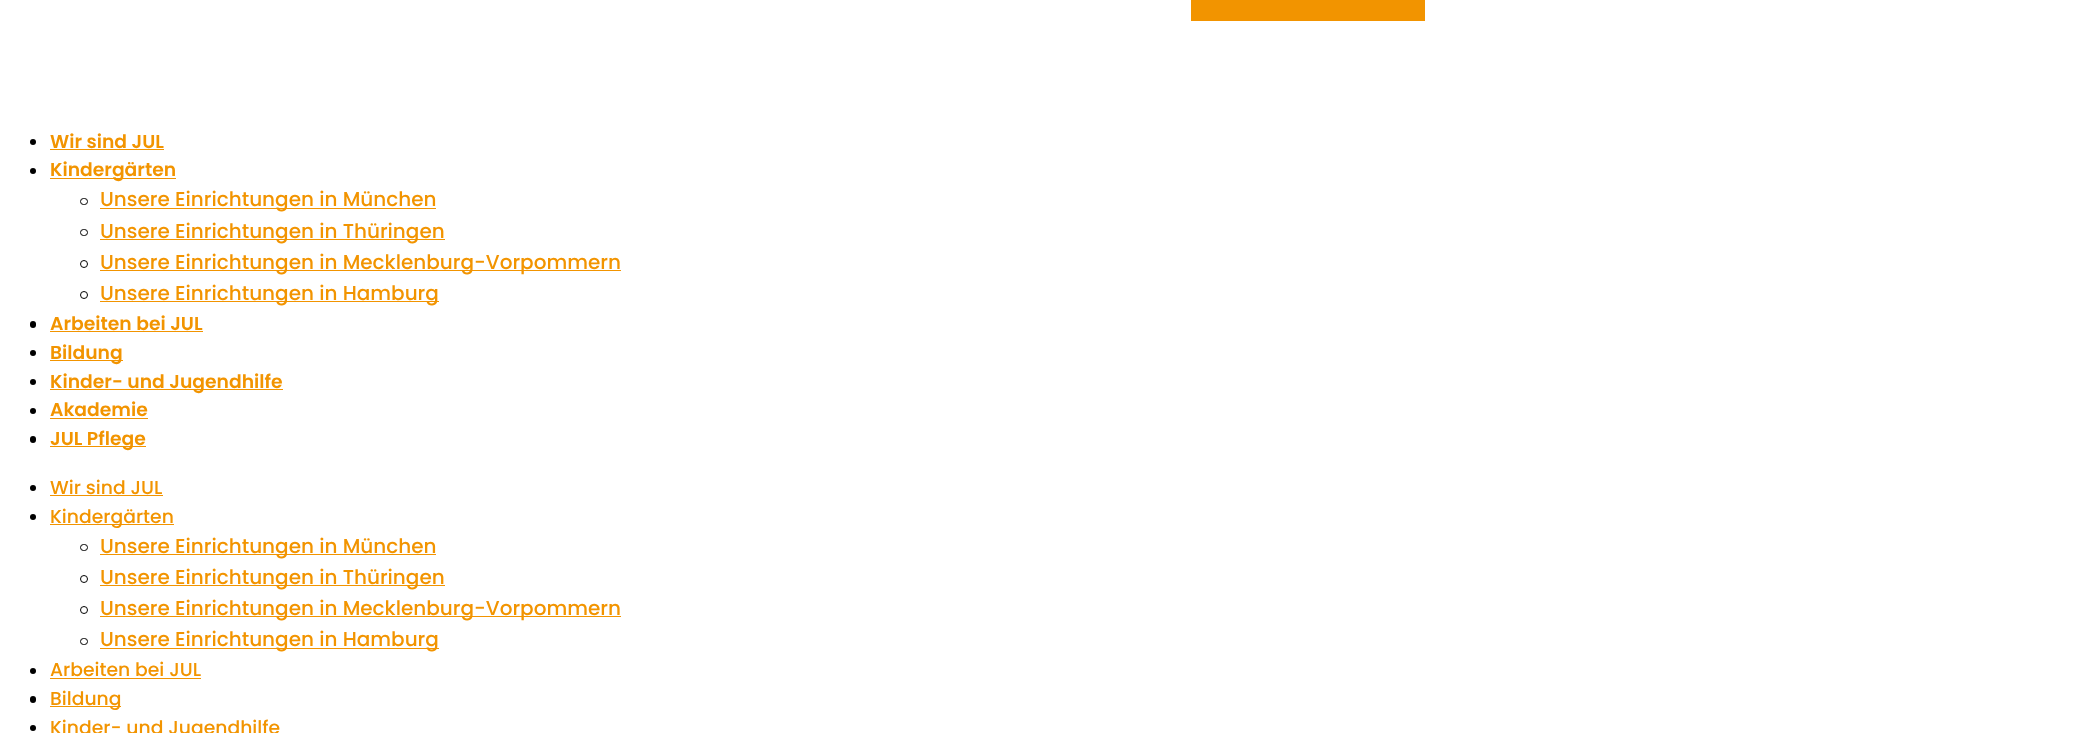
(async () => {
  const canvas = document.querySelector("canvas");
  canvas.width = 2073;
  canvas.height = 733;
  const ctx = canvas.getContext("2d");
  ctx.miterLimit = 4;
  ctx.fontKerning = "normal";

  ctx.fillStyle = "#ffffff";
  ctx.fillRect(0, 0, 2073, 733);
  ctx.fillStyle = "#f29400";
  ctx.fillRect(1191, 0, 234, 21);
  ctx.fillStyle = "#000000";
  ctx.beginPath();
  ctx.arc(33, 142, 3, 0, Math.PI * 2);
  ctx.fill();
  ctx.fillStyle = "#f29400";
  ctx.fillRect(50, 149, 114, 1);
  ctx.fillStyle = "#000000";
  ctx.beginPath();
  ctx.arc(33, 171, 3, 0, Math.PI * 2);
  ctx.fill();
  ctx.fillStyle = "#f29400";
  ctx.fillRect(50, 178, 126, 1);
  ctx.beginPath();
  ctx.roundRect(80.5, 198.5, 7, 6, 3);
  ctx.strokeStyle = "#000000";
  ctx.stroke();
  ctx.fillRect(100, 208, 336, 1);
  ctx.beginPath();
  ctx.roundRect(80.5, 229.5, 7, 6, 3);
  ctx.stroke();
  ctx.fillRect(100, 239, 345, 1);
  ctx.beginPath();
  ctx.arc(84, 264, 3.5, 0, Math.PI * 2);
  ctx.stroke();
  ctx.fillRect(100, 270, 521, 1);
  ctx.beginPath();
  ctx.arc(84, 295, 3.5, 0, Math.PI * 2);
  ctx.stroke();
  ctx.fillRect(100, 301, 339, 1);
  ctx.fillStyle = "#000000";
  ctx.beginPath();
  ctx.roundRect(30, 321, 6, 7, 3);
  ctx.fill();
  ctx.fillStyle = "#f29400";
  ctx.fillRect(50, 331, 153, 1);
  ctx.fillStyle = "#000000";
  ctx.beginPath();
  ctx.arc(33, 353, 3, 0, Math.PI * 2);
  ctx.fill();
  ctx.fillStyle = "#f29400";
  ctx.fillRect(50, 360, 73, 1);
  ctx.fillStyle = "#000000";
  ctx.beginPath();
  ctx.arc(33, 382, 3, 0, Math.PI * 2);
  ctx.fill();
  ctx.fillStyle = "#f29400";
  ctx.fillRect(50, 389, 233, 1);
  ctx.fillStyle = "#000000";
  ctx.beginPath();
  ctx.arc(33, 411, 3, 0, Math.PI * 2);
  ctx.fill();
  ctx.fillStyle = "#f29400";
  ctx.fillRect(50, 418, 98, 1);
  ctx.fillStyle = "#000000";
  ctx.beginPath();
  ctx.roundRect(30, 436, 6, 7, 3);
  ctx.fill();
  ctx.fillStyle = "#f29400";
  ctx.fillRect(50, 446, 96, 1);
  ctx.fillStyle = "#000000";
  ctx.beginPath();
  ctx.arc(33, 488, 3, 0, Math.PI * 2);
  ctx.fill();
  ctx.fillStyle = "#f29400";
  ctx.fillRect(50, 495, 113, 1);
  ctx.fillStyle = "#000000";
  ctx.beginPath();
  ctx.arc(33, 517, 3, 0, Math.PI * 2);
  ctx.fill();
  ctx.fillStyle = "#f29400";
  ctx.fillRect(50, 524, 124, 1);
  ctx.beginPath();
  ctx.roundRect(80.5, 544.5, 7, 6, 3);
  ctx.stroke();
  ctx.fillRect(100, 554, 336, 1);
  ctx.beginPath();
  ctx.arc(84, 579, 3.5, 0, Math.PI * 2);
  ctx.stroke();
  ctx.fillRect(100, 585, 345, 1);
  ctx.beginPath();
  ctx.arc(84, 610, 3.5, 0, Math.PI * 2);
  ctx.stroke();
  ctx.fillRect(100, 616, 521, 1);
  ctx.beginPath();
  ctx.roundRect(80.5, 638.5, 7, 6, 3);
  ctx.stroke();
  ctx.fillRect(100, 648, 339, 1);
  ctx.fillStyle = "#000000";
  ctx.beginPath();
  ctx.arc(33, 671, 3, 0, Math.PI * 2);
  ctx.fill();
  ctx.fillStyle = "#f29400";
  ctx.fillRect(50, 678, 151, 1);
  ctx.fillStyle = "#000000";
  ctx.beginPath();
  ctx.roundRect(30, 696, 6, 7, 3);
  ctx.fill();
  ctx.fillStyle = "#f29400";
  ctx.fillRect(50, 706, 71, 1);
  ctx.fillStyle = "#000000";
  ctx.beginPath();
  ctx.arc(33, 728, 3, 0, Math.PI * 2);
  ctx.fill();
  ctx.font = "600 18.75px Poppins";
  ctx.fillStyle = "#f29400";
  ctx.fillText("Wir sind JUL", 50, 148);
  ctx.fillText("Kindergärten", 50, 176);
  ctx.font = "500 20px Poppins";
  for (const [text, x, y] of [
    ["Unsere Einrichtungen in München", 100, 206],
    ["Unsere Einrichtungen in Thüringen", 100, 238],
    ["Unsere Einrichtungen in Mecklenburg-Vorpommern", 100, 269],
    ["Unsere Einrichtungen in Hamburg", 100, 300],
  ]) {
    ctx.fillText(text, x, y);
  }
  ctx.font = "600 18.75px Poppins";
  for (const [text, x, y] of [
    ["Arbeiten bei JUL", 50, 330],
    ["Bildung", 50, 359],
    ["Kinder- und Jugendhilfe", 50, 388],
    ["Akademie", 50, 416],
    ["JUL Pflege", 50, 445],
  ]) {
    ctx.fillText(text, x, y);
  }
  ctx.font = "500 18.75px Poppins";
  ctx.fillText("Wir sind JUL", 50, 494);
  ctx.fillText("Kindergärten", 50, 523);
  ctx.font = "500 20px Poppins";
  for (const [text, x, y] of [
    ["Unsere Einrichtungen in München", 100, 553],
    ["Unsere Einrichtungen in Thüringen", 100, 584],
    ["Unsere Einrichtungen in Mecklenburg-Vorpommern", 100, 615],
    ["Unsere Einrichtungen in Hamburg", 100, 646],
  ]) {
    ctx.fillText(text, x, y);
  }
  ctx.font = "500 18.75px Poppins";
  for (const [text, x, y] of [
    ["Arbeiten bei JUL", 50, 676],
    ["Bildung", 50, 705],
    ["Kinder- und Jugendhilfe", 50, 734],
  ]) {
    ctx.fillText(text, x, y);
  }
})();
